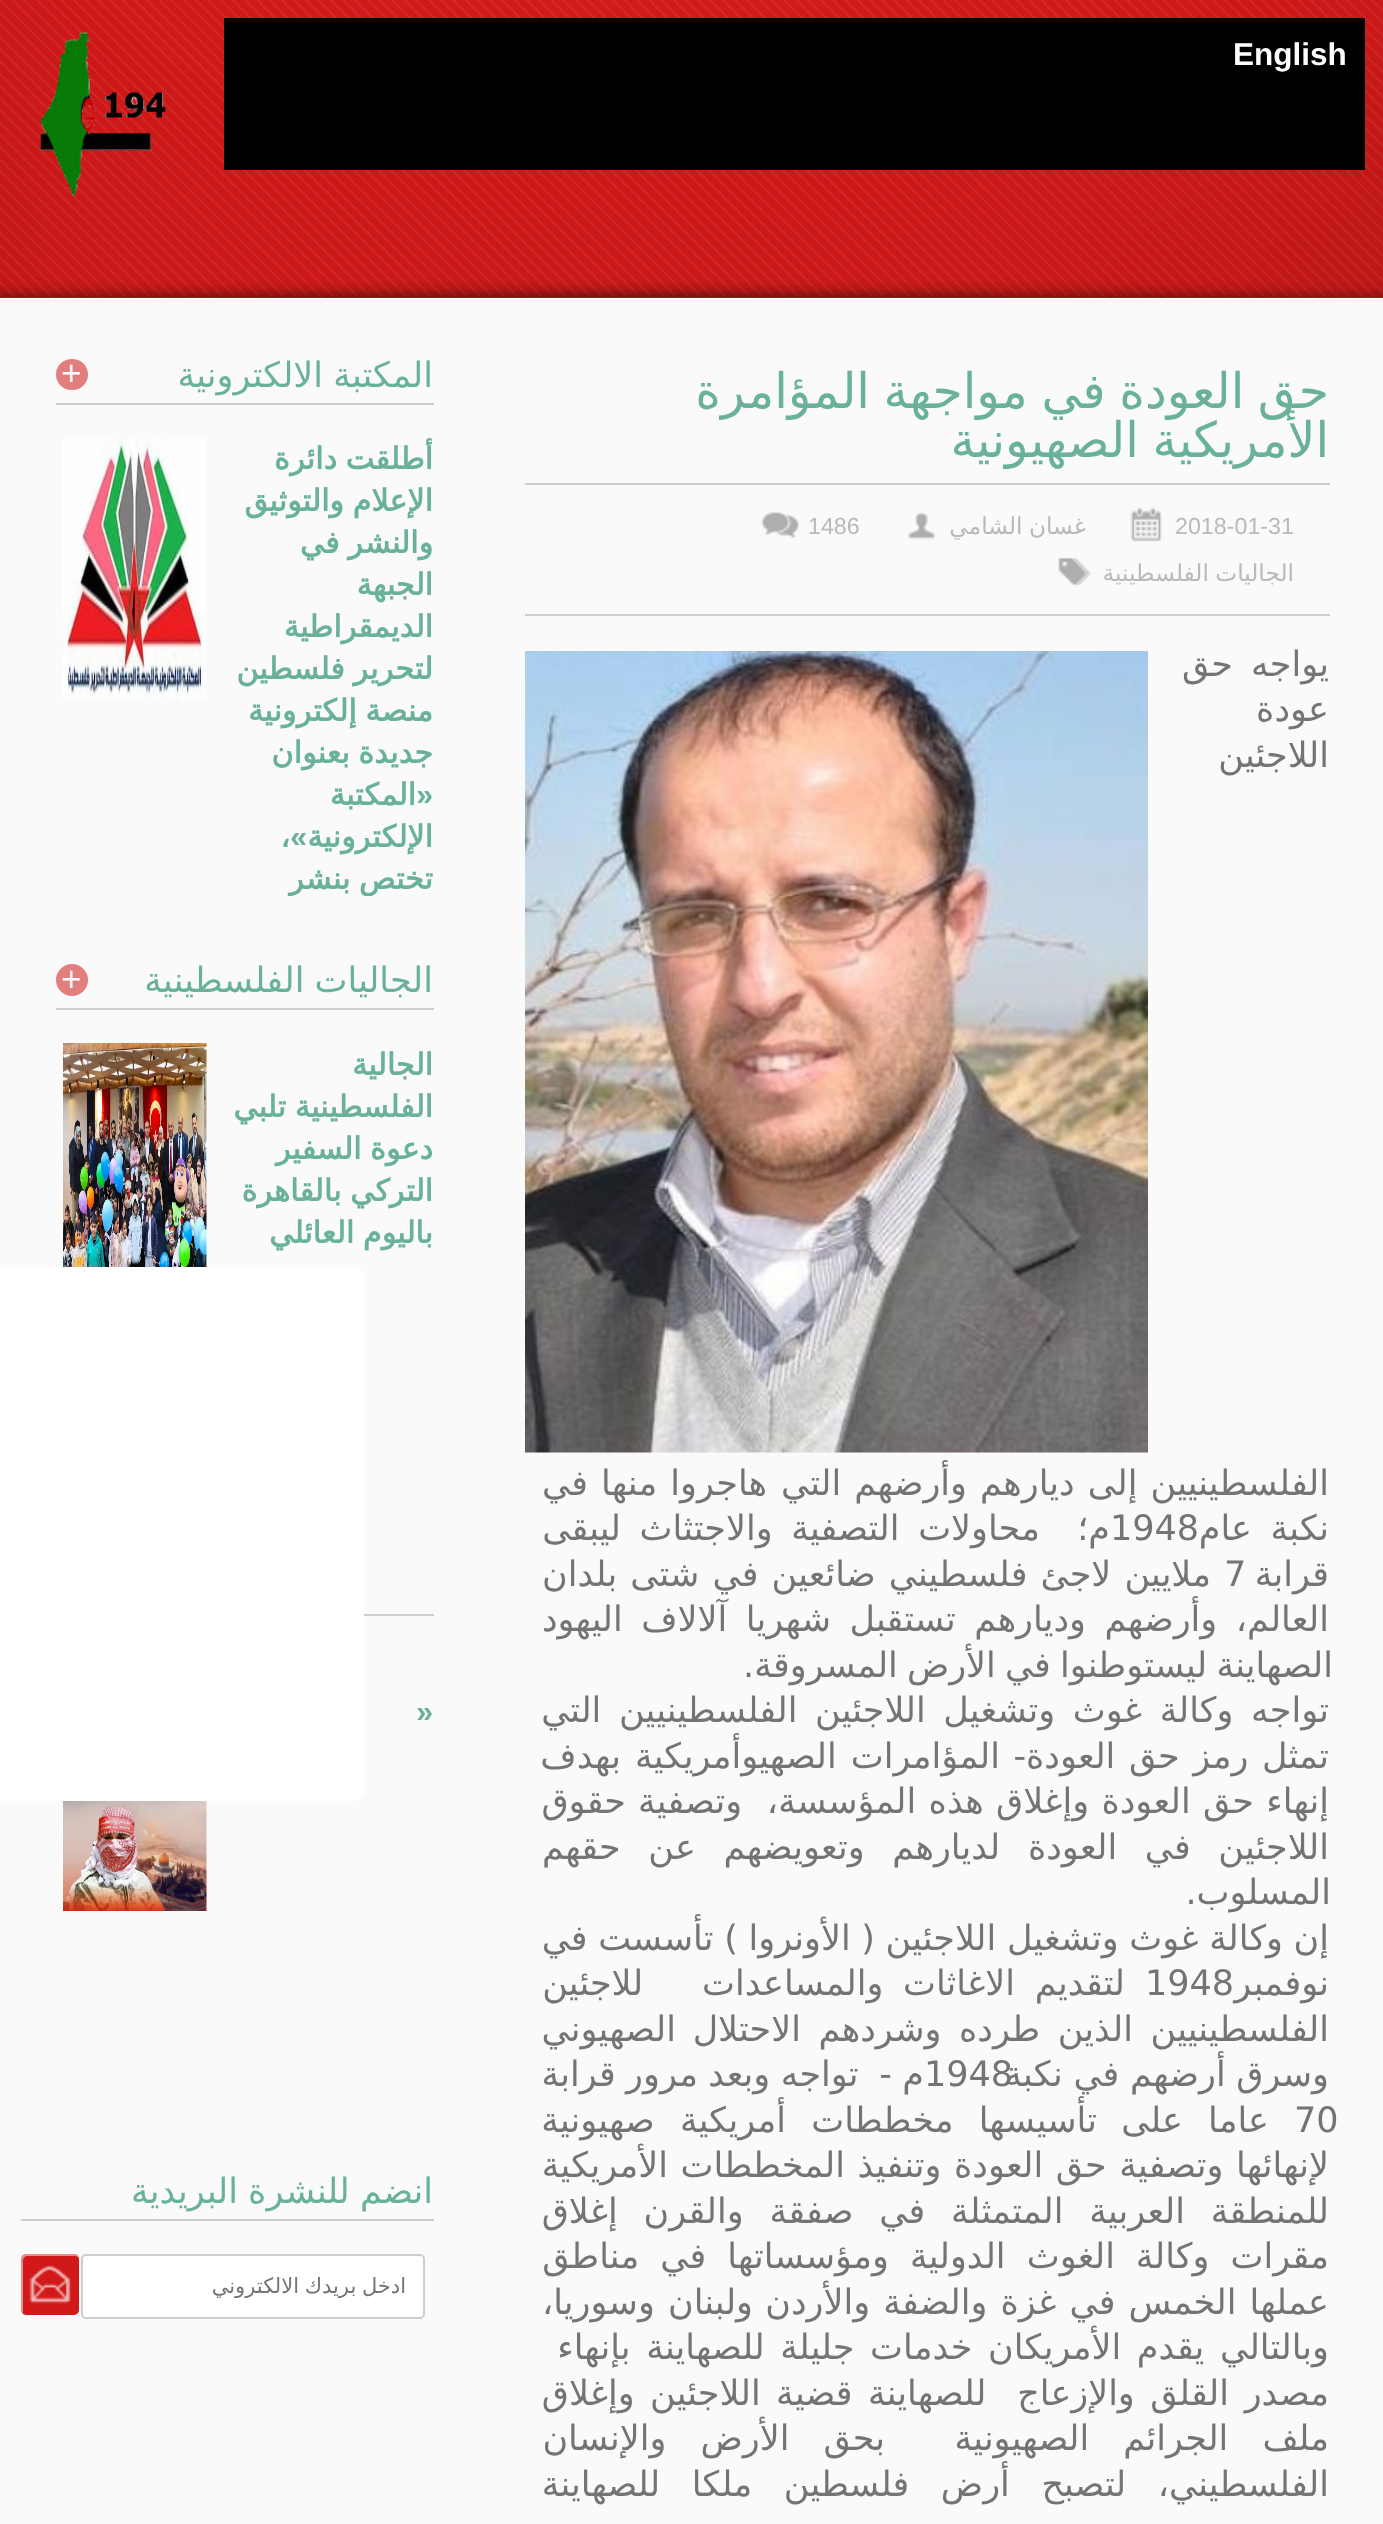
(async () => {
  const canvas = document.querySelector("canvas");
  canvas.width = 1383;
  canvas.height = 2524;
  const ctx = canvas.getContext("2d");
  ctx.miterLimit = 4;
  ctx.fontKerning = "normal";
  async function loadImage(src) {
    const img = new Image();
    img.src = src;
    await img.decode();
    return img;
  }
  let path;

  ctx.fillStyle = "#d11919";
  ctx.fillRect(0, 0, 1383, 2524);
  ctx.drawImage(await loadImage("img/1.png"), 0, 0, 1383, 298);
  ctx.drawImage(await loadImage("img/2.png"), 0, 0, 1383, 298);
  ctx.fillStyle = "#000000";
  ctx.fillRect(224, 18, 1141, 152);
  ctx.drawImage(await loadImage("img/3.png"), 40, 32, 126, 165);
  for (const [x, y, w, h, color] of [
    [0, 298, 1383, 2226, "#fafafa"],
    [525, 483, 805, 2, "#cecece"],
    [525, 614, 805, 2, "#cecece"],
  ]) {
    ctx.fillStyle = color;
    ctx.fillRect(x, y, w, h);
  }
  ctx.drawImage(await loadImage("img/4.png"), 1130, 507, 32, 35);
  ctx.drawImage(await loadImage("img/5.png"), 908, 512, 27, 28);
  ctx.drawImage(await loadImage("img/6.png"), 761, 511, 38, 27);
  ctx.drawImage(await loadImage("img/7.png"), 1058, 557, 33, 29);
  ctx.drawImage(await loadImage("img/8.png"), 525, 651, 623, 802);
  ctx.fillRect(56, 403, 378, 2);
  ctx.fillStyle = "#e37e7e";
  ctx.beginPath();
  ctx.roundRect(56, 359, 32, 31, 15.5);
  ctx.fill();
  ctx.drawImage(await loadImage("img/9.png"), 63, 438, 143, 262);
  ctx.fillStyle = "#cecece";
  ctx.fillRect(56, 1008, 378, 2);
  ctx.fillStyle = "#e37e7e";
  ctx.beginPath();
  ctx.arc(72, 980, 16, 0, Math.PI * 2);
  ctx.fill();
  ctx.drawImage(await loadImage("img/10.png"), 63, 1043, 144, 224);
  ctx.fillStyle = "#cecece";
  ctx.fillRect(364, 1614, 70, 2);
  ctx.drawImage(await loadImage("img/11.png"), 63, 1801, 144, 110);
  ctx.fillRect(21, 2219, 413, 2);
  ctx.fillStyle = "#ffffff";
  ctx.beginPath();
  ctx.roundRect(82, 2255, 342, 63, 4);
  ctx.fill();
  ctx.strokeStyle = "#cecece";
  ctx.lineWidth = 2;
  ctx.stroke();
  ctx.fillStyle = "#d11919";
  ctx.beginPath();
  ctx.roundRect(21, 2254, 58, 61, 5);
  ctx.fill();
  ctx.fillStyle = "rgba(255, 255, 255, 0.5)";
  path = new Path2D("M28 2256H75C77 2256 78 2257 79 2258C78 2255 76 2254 74 2254H26C23 2254 21 2256 21 2259V2310C21 2312 22 2313 23 2314V2312V2261C23 2258 25 2256 28 2256Z");
  ctx.fill(path);
  ctx.drawImage(await loadImage("img/12.png"), 29, 2265, 42, 39);
  ctx.fillStyle = "#ffffff";
  ctx.beginPath();
  ctx.roundRect(-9, 1267, 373, 534, 9);
  ctx.fill();
  ctx.font = "bold 31.5px Liberation Sans";
  ctx.fillStyle = "#fdfdfd";
  ctx.fillText("English", 1233, 65);
  ctx.wordSpacing = "-2px";
  ctx.direction = "rtl";
  ctx.font = "49px DejaVu Sans";
  ctx.fillStyle = "#69b297";
  ctx.fillText("حق العودة في مواجهة المؤامرة", 1329, 408);
  ctx.fillText("الأمريكية الصهيونية", 1329, 457);
  ctx.wordSpacing = "0px";
  ctx.direction = "ltr";
  ctx.font = "23.25px Liberation Sans";
  ctx.fillStyle = "#b9b9b9";
  ctx.fillText("2018-01-31", 1175, 534);
  ctx.wordSpacing = "-1px";
  ctx.direction = "rtl";
  ctx.font = "23.25px DejaVu Sans";
  ctx.fillText("غسان الشامي", 1086, 534);
  ctx.wordSpacing = "0px";
  ctx.direction = "ltr";
  ctx.font = "23.25px Liberation Sans";
  ctx.fillText("1486", 808, 534);
  ctx.wordSpacing = "-1px";
  ctx.direction = "rtl";
  ctx.font = "23.25px DejaVu Sans";
  ctx.fillText("الجاليات الفلسطينية", 1294, 581);
  ctx.wordSpacing = "7px";
  ctx.font = "35px DejaVu Sans";
  ctx.fillStyle = "#747474";
  ctx.fillText("يواجه حق", 1329, 676);
  ctx.wordSpacing = "0px";
  ctx.fillText("عودة", 1329, 721);
  ctx.fillText("اللاجئين", 1329, 767);
  ctx.wordSpacing = "2px";
  ctx.fillText("الفلسطينيين إلى ديارهم وأرضهم التي", 1329, 1495);
  ctx.fillText("هاجروا منها في", 767, 1495);
  ctx.wordSpacing = "7.5px";
  ctx.fillText("نكبة عام", 1329, 1540);
  ctx.wordSpacing = "0px";
  ctx.direction = "ltr";
  ctx.fillText("1948", 1110, 1540);
  ctx.wordSpacing = "7.5px";
  ctx.direction = "rtl";
  ctx.fillText("م؛  محاولات التصفية والاجتثاث ليبقى", 1110, 1540);
  ctx.wordSpacing = "0px";
  ctx.fillText("قرابة", 1329, 1586);
  ctx.direction = "ltr";
  ctx.fillText("7", 1224, 1586);
  ctx.wordSpacing = "2px";
  ctx.direction = "rtl";
  ctx.fillText("ملايين لاجئ فلسطيني ضائعين في شتى بلدان", 1211, 1586);
  ctx.wordSpacing = "7.5px";
  ctx.fillText("العالم، وأرضهم وديارهم تستقبل", 1329, 1631);
  ctx.fillText("شهريا آلالاف اليهود", 831, 1631);
  ctx.wordSpacing = "-2px";
  ctx.fillText("الصهاينة ليستوطنوا في الأرض المسروقة.", 1333, 1677);
  ctx.wordSpacing = "6.5px";
  ctx.fillText("تواجه وكالة غوث وتشغيل اللاجئين الفلسطينيين التي", 1329, 1722);
  ctx.wordSpacing = "2.5px";
  ctx.fillText("تمثل رمز حق العودة-", 1329, 1768);
  ctx.wordSpacing = "3px";
  ctx.fillText("المؤامرات الصهيوأمريكية بهدف", 1000, 1768);
  ctx.wordSpacing = "1.25px";
  ctx.fillText("إنهاء حق العودة وإغلاق هذه المؤسسة،  وتصفية", 1329, 1813);
  ctx.wordSpacing = "0px";
  ctx.fillText("حقوق", 626, 1813);
  ctx.wordSpacing = "16.5px";
  ctx.fillText("اللاجئين في العودة لديارهم وتعويضهم عن حقهم", 1329, 1859);
  ctx.wordSpacing = "0px";
  ctx.fillText("المسلوب.", 1331, 1904);
  ctx.wordSpacing = "-0.5px";
  ctx.fillText("إن وكالة غوث وتشغيل اللاجئين ( الأونروا ) تأسست في", 1329, 1950);
  ctx.wordSpacing = "0px";
  ctx.fillText("نوفمبر", 1329, 1995);
  ctx.direction = "ltr";
  ctx.fillText("1948", 1145, 1995);
  ctx.direction = "rtl";
  ctx.fillText("لتقديم", 1125, 1995);
  ctx.wordSpacing = "8.5px";
  ctx.fillText("الاغاثات والمساعدات   للاجئين", 1015, 1995);
  ctx.wordSpacing = "6.5px";
  ctx.fillText("الفلسطينيين الذين طرده وشردهم الاحتلال", 1329, 2041);
  ctx.wordSpacing = "0px";
  ctx.fillText("الصهيوني", 676, 2041);
  ctx.direction = "ltr";
  ctx.fillText("1948", 924, 2086);
  ctx.wordSpacing = "-0.5px";
  ctx.direction = "rtl";
  ctx.fillText("وسرق أرضهم في نكبة", 1329, 2086);
  ctx.wordSpacing = "-0.75px";
  ctx.fillText("م -  تواجه وبعد مرور قرابة", 924, 2086);
  ctx.wordSpacing = "0px";
  ctx.direction = "ltr";
  ctx.fillText("70", 1294, 2132);
  ctx.wordSpacing = "14px";
  ctx.direction = "rtl";
  ctx.fillText("عاما على", 1269, 2132);
  ctx.fillText("تأسيسها مخططات أمريكية صهيونية", 1097, 2132);
  ctx.wordSpacing = "1.5px";
  ctx.fillText("لإنهائها وتصفية حق العودة وتنفيذ المخططات", 1329, 2177);
  ctx.wordSpacing = "0px";
  ctx.fillText("الأمريكية", 668, 2177);
  ctx.wordSpacing = "14.75px";
  ctx.fillText("للمنطقة العربية المتمثلة في صفقة والقرن إغلاق", 1329, 2223);
  ctx.wordSpacing = "10px";
  ctx.fillText("مقرات وكالة", 1329, 2268);
  ctx.fillText("الغوث الدولية ومؤسساتها في مناطق", 1115, 2268);
  ctx.wordSpacing = "2px";
  ctx.fillText("عملها الخمس في غزة والضفة والأردن", 1329, 2314);
  ctx.fillText("ولبنان وسوريا،", 753, 2314);
  ctx.wordSpacing = "4.5px";
  ctx.fillText("وبالتالي يقدم الأمريكان خدمات جليلة للصهاينة بإنهاء", 1329, 2359);
  ctx.wordSpacing = "0px";
  ctx.fillText("مصدر", 1329, 2405);
  ctx.wordSpacing = "4.25px";
  ctx.fillText("القلق والإزعاج  للصهاينة قضية اللاجئين وإغلاق", 1229, 2405);
  ctx.wordSpacing = "23px";
  ctx.fillText("ملف الجرائم الصهيونية", 1329, 2450);
  ctx.fillText("بحق الأرض والإنسان", 885, 2450);
  ctx.wordSpacing = "20.5px";
  ctx.fillText("الفلسطيني، لتصبح أرض فلسطين ملكا للصهاينة", 1329, 2496);
  ctx.wordSpacing = "-1px";
  ctx.fillStyle = "#69b297";
  ctx.fillText("المكتبة الالكترونية", 433, 387);
  ctx.wordSpacing = "0px";
  ctx.direction = "ltr";
  ctx.font = "35px Liberation Sans";
  ctx.fillStyle = "#fdfdfd";
  ctx.fillText("+", 61, 385);
  ctx.wordSpacing = "-1px";
  ctx.direction = "rtl";
  ctx.font = "bold 30.25px DejaVu Sans";
  ctx.fillStyle = "#69b297";
  for (const [text, x, y] of [
    ["أطلقت دائرة", 433, 469],
    ["الإعلام والتوثيق", 433, 511],
    ["والنشر في", 433, 553],
  ]) {
    ctx.fillText(text, x, y);
  }
  ctx.wordSpacing = "0px";
  ctx.fillText("الجبهة", 433, 595);
  ctx.fillText("الديمقراطية", 433, 637);
  ctx.wordSpacing = "-1px";
  for (const [text, x, y] of [
    ["لتحرير فلسطين", 433, 679],
    ["منصة إلكترونية", 433, 721],
    ["جديدة بعنوان", 433, 763],
  ]) {
    ctx.fillText(text, x, y);
  }
  ctx.wordSpacing = "0px";
  ctx.font = "bold 30.25px Liberation Sans";
  ctx.fillText("«", 433, 805);
  ctx.font = "bold 30.25px DejaVu Sans";
  ctx.fillText("المكتبة", 416, 805);
  ctx.fillText("الإلكترونية", 433, 847);
  ctx.font = "bold 30.25px Liberation Sans";
  ctx.fillText("»", 307, 847);
  ctx.font = "bold 30.25px DejaVu Sans";
  ctx.fillText("،", 290, 847);
  ctx.save();
  ctx.beginPath();
  ctx.rect(56, 438, 378, 458);
  ctx.clip();
  ctx.wordSpacing = "-1px";
  ctx.fillText("تختص بنشر", 433, 889);
  ctx.restore();
  ctx.wordSpacing = "-1px";
  ctx.font = "35px DejaVu Sans";
  ctx.fillText("الجاليات الفلسطينية", 433, 992);
  ctx.wordSpacing = "0px";
  ctx.direction = "ltr";
  ctx.font = "35px Liberation Sans";
  ctx.fillStyle = "#fdfdfd";
  ctx.fillText("+", 61, 991);
  ctx.direction = "rtl";
  ctx.font = "bold 30.25px DejaVu Sans";
  ctx.fillStyle = "#69b297";
  ctx.fillText("الجالية", 433, 1075);
  ctx.wordSpacing = "-1px";
  for (const [text, x, y] of [
    ["الفلسطينية تلبي", 433, 1117],
    ["دعوة السفير", 433, 1159],
    ["التركي بالقاهرة", 433, 1201],
    ["باليوم العائلي", 433, 1243],
  ]) {
    ctx.fillText(text, x, y);
  }
  ctx.wordSpacing = "0px";
  ctx.font = "bold 30.25px Liberation Sans";
  ctx.fillText("«", 433, 1722);
  ctx.wordSpacing = "-1px";
  ctx.font = "35px DejaVu Sans";
  ctx.fillText("انضم للنشرة البريدية", 433, 2203);
  ctx.save();
  ctx.beginPath();
  ctx.rect(98, 2273, 308, 25);
  ctx.clip();
  ctx.font = "21px DejaVu Sans";
  ctx.fillStyle = "#747474";
  ctx.fillText("ادخل بريدك الالكتروني", 406, 2293);
  ctx.restore();
})();
